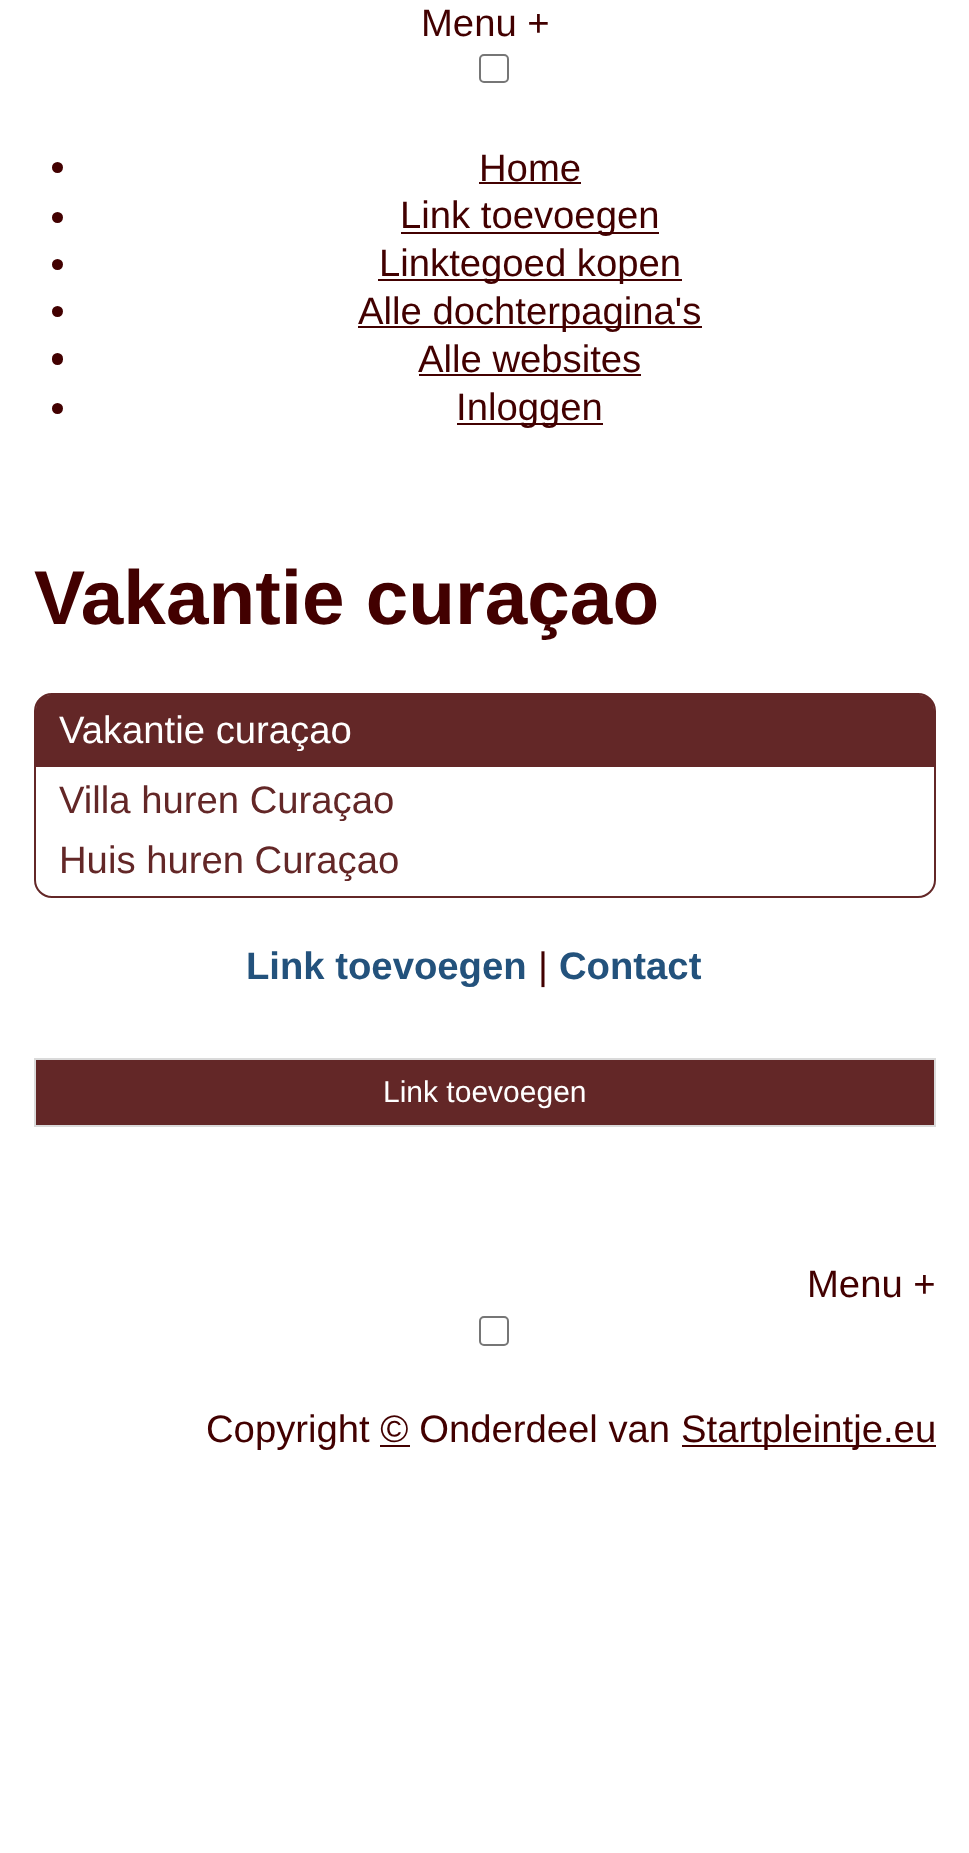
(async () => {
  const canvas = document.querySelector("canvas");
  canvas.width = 969;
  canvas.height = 1853;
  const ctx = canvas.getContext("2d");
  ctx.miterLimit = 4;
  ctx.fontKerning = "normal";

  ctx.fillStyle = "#ffffff";
  ctx.fillRect(0, 0, 969, 1853);
  ctx.beginPath();
  ctx.roundRect(480, 55, 28, 27, 4);
  ctx.strokeStyle = "#767676";
  ctx.lineWidth = 2;
  ctx.stroke();
  ctx.fillStyle = "#420000";
  ctx.beginPath();
  ctx.arc(57.5, 167.5, 5.5, 0, Math.PI * 2);
  ctx.fill();
  ctx.fillRect(479, 182, 102, 2);
  ctx.beginPath();
  ctx.arc(57.5, 217.5, 5.5, 0, Math.PI * 2);
  ctx.fill();
  ctx.fillRect(401, 232, 258, 2);
  ctx.beginPath();
  ctx.arc(57.5, 264.5, 5.5, 0, Math.PI * 2);
  ctx.fill();
  ctx.fillRect(378, 279, 304, 2);
  ctx.beginPath();
  ctx.arc(57.5, 311.5, 5.5, 0, Math.PI * 2);
  ctx.fill();
  ctx.fillRect(358, 326, 344, 2);
  ctx.beginPath();
  ctx.roundRect(52, 353, 11, 12, 5.5);
  ctx.fill();
  ctx.fillRect(419, 374, 222, 2);
  ctx.beginPath();
  ctx.arc(57.5, 408.5, 5.5, 0, Math.PI * 2);
  ctx.fill();
  ctx.fillRect(457, 423, 146, 2);
  ctx.beginPath();
  ctx.roundRect(35, 694, 900, 203, 17);
  ctx.strokeStyle = "#632727";
  ctx.stroke();
  ctx.fillStyle = "#632727";
  ctx.beginPath();
  ctx.roundRect(36, 695, 898, 72, [14, 14, 0, 0]);
  ctx.fill();
  ctx.beginPath();
  ctx.rect(35, 1059, 900, 67);
  ctx.fill();
  ctx.strokeStyle = "#dadada";
  ctx.stroke();
  ctx.beginPath();
  ctx.roundRect(480, 1317, 28, 28, 4);
  ctx.strokeStyle = "#767676";
  ctx.stroke();
  ctx.fillStyle = "#420000";
  ctx.fillRect(682, 1445, 254, 2);
  ctx.fillRect(380, 1445, 30, 2);
  ctx.font = "38.25px Liberation Sans";
  for (const [text, x, y] of [
    ["Menu +", 421, 36],
    ["Home", 479, 181],
    ["Link toevoegen", 400, 228],
    ["Linktegoed kopen", 379, 276],
    ["Alle dochterpagina's", 358, 324],
    ["Alle websites", 418, 372],
    ["Inloggen", 456, 420],
  ]) {
    ctx.fillText(text, x, y);
  }
  ctx.font = "bold 76.5px Liberation Sans";
  ctx.fillText("Vakantie curaçao", 34, 624);
  ctx.font = "38.25px Liberation Sans";
  ctx.fillStyle = "#ffffff";
  ctx.fillText("Vakantie curaçao", 59, 743);
  ctx.fillStyle = "#632727";
  ctx.fillText("Villa huren Curaçao", 59, 813);
  ctx.fillText("Huis huren Curaçao", 59, 873);
  ctx.font = "bold 38.25px Liberation Sans";
  ctx.fillStyle = "#23527c";
  ctx.fillText("Link toevoegen", 246, 979);
  ctx.font = "38.25px Liberation Sans";
  ctx.fillStyle = "#420000";
  ctx.fillText("|", 538, 979);
  ctx.font = "bold 38.25px Liberation Sans";
  ctx.fillStyle = "#23527c";
  ctx.fillText("Contact", 559, 979);
  ctx.font = "30px Liberation Sans";
  ctx.fillStyle = "#ffffff";
  ctx.fillText("Link toevoegen", 383, 1102);
  ctx.font = "38.25px Liberation Sans";
  ctx.fillStyle = "#420000";
  for (const [text, x, y] of [
    ["Menu +", 807, 1297],
    ["Copyright © Onderdeel van", 206, 1442],
    ["Startpleintje.eu", 681, 1442],
  ]) {
    ctx.fillText(text, x, y);
  }
})();
